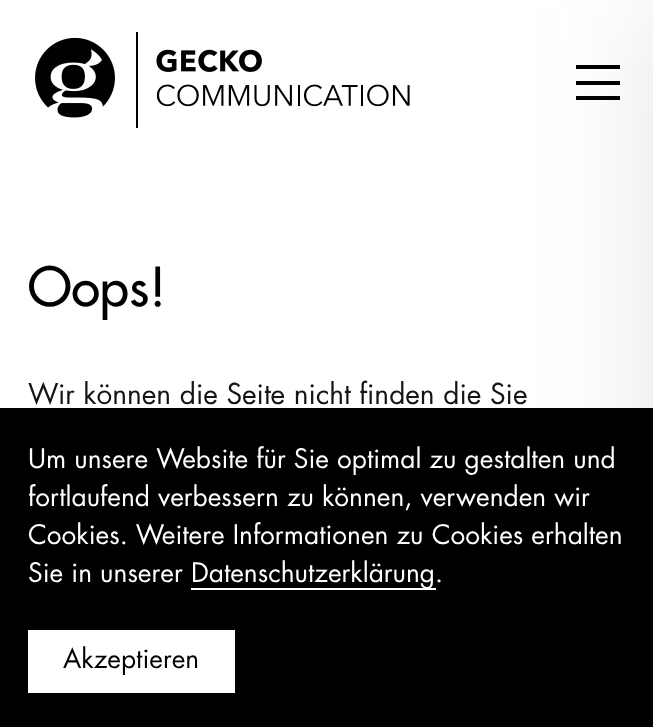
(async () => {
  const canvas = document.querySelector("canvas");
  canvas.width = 653;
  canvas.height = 727;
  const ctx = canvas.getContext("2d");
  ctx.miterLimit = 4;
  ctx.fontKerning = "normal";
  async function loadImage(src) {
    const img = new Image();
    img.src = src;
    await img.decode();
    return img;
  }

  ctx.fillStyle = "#ffffff";
  ctx.fillRect(0, 0, 653, 727);
  ctx.drawImage(await loadImage("img/1.png"), 35, 32, 375, 96);
  ctx.fillStyle = "rgba(90, 90, 90, 0.16)";
  ctx.filter = "blur(58px)";
  ctx.beginPath();
  ctx.rect(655, 5, 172, 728);
  ctx.fill();
  ctx.filter = "none";
  for (const [x, y, w, h, color] of [
    [576, 65, 44, 4, "#000000"],
    [576, 81, 44, 4, "#000000"],
    [576, 96, 44, 4, "#000000"],
    [0, 408, 653, 319, "#000000"],
    [191, 588, 245, 2, "#ffffff"],
    [28, 630, 207, 63, "#ffffff"],
  ]) {
    ctx.fillStyle = color;
    ctx.fillRect(x, y, w, h);
  }
  ctx.font = "500 52.5px Futura";
  ctx.fillStyle = "#000000";
  ctx.fillText("Oops!", 28, 306);
  ctx.font = "28px Futura";
  ctx.fillStyle = "#141414";
  ctx.fillText("Wir können die Seite nicht finden die Sie", 28, 404);
  ctx.font = "26.25px Futura";
  ctx.fillStyle = "#ffffff";
  for (const [text, x, y] of [
    ["Um unsere Website für Sie optimal zu gestalten und", 28, 468],
    ["fortlaufend verbessern zu können, verwenden wir", 28, 506],
    ["Cookies. Weitere Informationen zu Cookies erhalten", 28, 544],
    ["Sie in unserer", 28, 582],
    ["Datenschutzerklärung.", 191, 582],
  ]) {
    ctx.fillText(text, x, y);
  }
  ctx.fillStyle = "#000000";
  ctx.fillText("Akzeptieren", 63, 668);
})();
